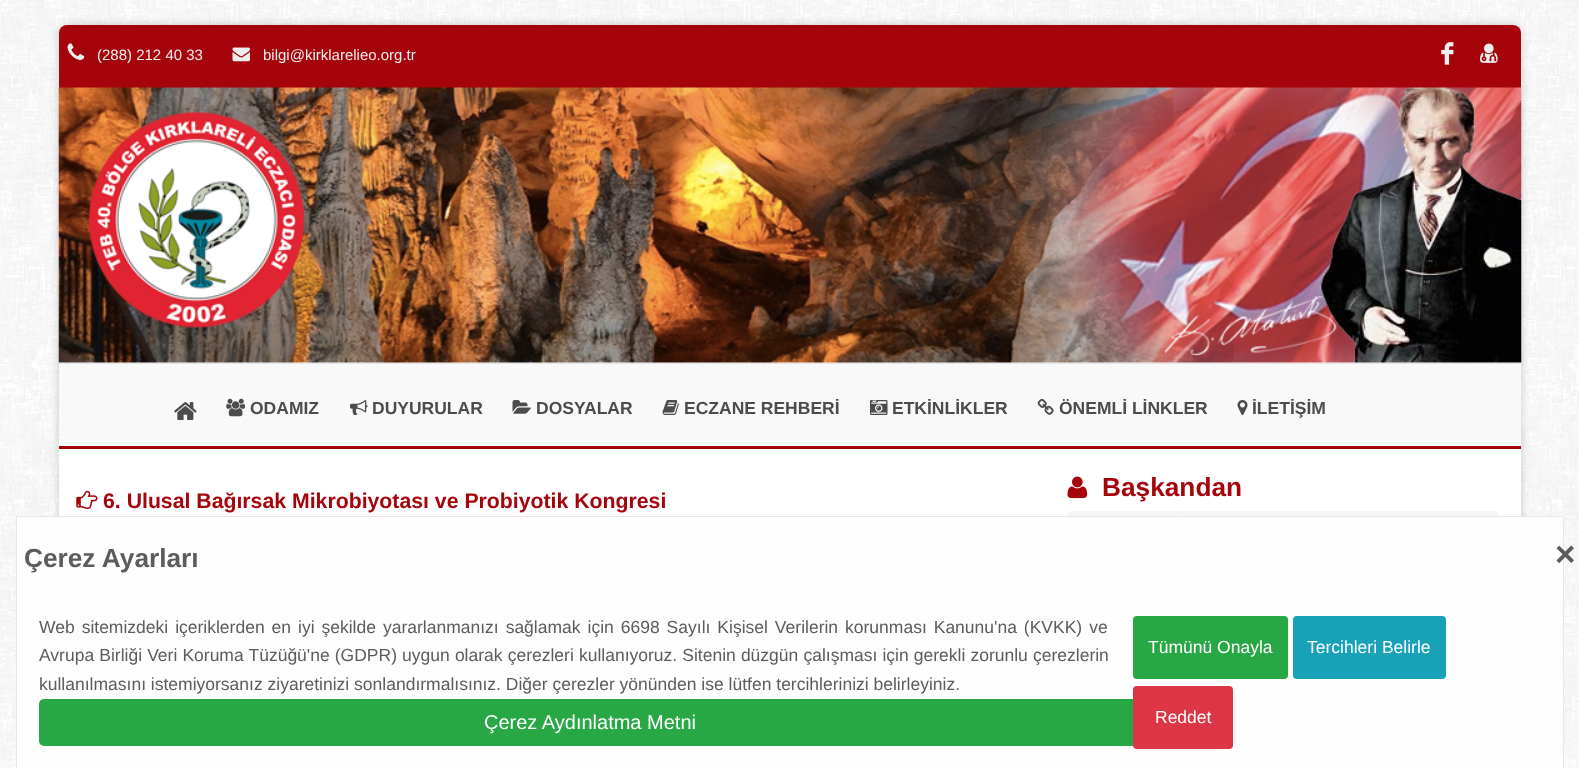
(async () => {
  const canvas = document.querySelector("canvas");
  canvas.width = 1579;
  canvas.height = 768;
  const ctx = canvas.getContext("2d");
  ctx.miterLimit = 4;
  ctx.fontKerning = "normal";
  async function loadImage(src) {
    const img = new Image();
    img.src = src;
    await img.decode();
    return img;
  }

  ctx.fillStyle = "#ffffff";
  ctx.fillRect(0, 0, 1579, 768);
  ctx.drawImage(await loadImage("img/1.png"), 0, 0, 1579, 768);
  ctx.fillStyle = "rgba(0, 0, 0, 0.2)";
  ctx.filter = "blur(4px)";
  ctx.beginPath();
  ctx.roundRect(59, 25, 1462, 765, 10);
  ctx.fill();
  ctx.filter = "none";
  ctx.fillStyle = "#ffffff";
  ctx.beginPath();
  ctx.roundRect(59, 25, 1462, 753, 10);
  ctx.fill();
  ctx.fillStyle = "#a6040b";
  ctx.beginPath();
  ctx.roundRect(59, 25, 1462, 63, [8, 8, 0, 0]);
  ctx.fill();
  ctx.drawImage(await loadImage("img/2.png"), 67, 43, 18, 17);
  ctx.drawImage(await loadImage("img/3.png"), 232, 47, 18, 15);
  ctx.drawImage(await loadImage("img/4.png"), 1441, 42, 13, 23);
  ctx.drawImage(await loadImage("img/5.png"), 1480, 43, 18, 20);
  ctx.drawImage(await loadImage("img/6.png"), 58, 87, 1464, 276);
  ctx.drawImage(await loadImage("img/7.png"), 88, 112, 216, 216);
  for (const [x, y, w, h, color] of [
    [59, 364, 1462, 82, "#f9f9f9"],
    [59, 363, 1462, 1, "#e6e6e6"],
    [59, 446, 1462, 3, "#a6040b"],
  ]) {
    ctx.fillStyle = color;
    ctx.fillRect(x, y, w, h);
  }
  ctx.drawImage(await loadImage("img/8.png"), 174, 402, 23, 18);
  ctx.drawImage(await loadImage("img/9.png"), 226, 398, 19, 19);
  ctx.drawImage(await loadImage("img/10.png"), 350, 400, 18, 15);
  ctx.drawImage(await loadImage("img/11.png"), 512, 400, 19, 14);
  ctx.drawImage(await loadImage("img/12.png"), 662, 400, 17, 15);
  ctx.drawImage(await loadImage("img/13.png"), 870, 400, 18, 15);
  ctx.drawImage(await loadImage("img/14.png"), 1037, 398, 17, 17);
  ctx.drawImage(await loadImage("img/15.png"), 1237, 400, 11, 15);
  ctx.drawImage(await loadImage("img/16.png"), 76, 490, 22, 19);
  ctx.drawImage(await loadImage("img/17.png"), 1067, 476, 21, 23);
  ctx.fillStyle = "#f6f6f6";
  ctx.beginPath();
  ctx.roundRect(1068, 511, 430, 217, 2.5);
  ctx.fill();
  ctx.fillStyle = "#fefefe";
  ctx.beginPath();
  ctx.rect(16.5, 516.5, 1547, 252);
  ctx.fill();
  ctx.strokeStyle = "#f0e1f0";
  ctx.stroke();
  ctx.fillStyle = "#28a745";
  ctx.beginPath();
  ctx.roundRect(39, 699, 1101, 47, 5);
  ctx.fill();
  ctx.beginPath();
  ctx.roundRect(1133, 616, 155, 63, 4);
  ctx.fill();
  ctx.fillStyle = "#17a2b8";
  ctx.beginPath();
  ctx.roundRect(1293, 616, 153, 63, 4);
  ctx.fill();
  ctx.fillStyle = "#dc3545";
  ctx.beginPath();
  ctx.roundRect(1133, 686, 100, 63, 4);
  ctx.fill();
  ctx.font = "15px Liberation Sans";
  ctx.fillStyle = "#eeeeee";
  ctx.fillText("(288) 212 40 33", 97, 60);
  ctx.fillText("bilgi@kirklarelieo.org.tr", 263, 60);
  ctx.font = "bold 17.5px Liberation Sans";
  ctx.fillStyle = "#4b4c4d";
  for (const [text, x, y] of [
    ["ODAMIZ", 250, 414],
    ["DUYURULAR", 372, 414],
    ["DOSYALAR", 536, 414],
    ["ECZANE REHBERİ", 684, 414],
    ["ETKİNLİKLER", 892, 414],
    ["ÖNEMLİ LİNKLER", 1059, 414],
    ["İLETİŞİM", 1252, 414],
  ]) {
    ctx.fillText(text, x, y);
  }
  ctx.font = "bold 21.25px Liberation Sans";
  ctx.fillStyle = "#a6040b";
  ctx.fillText("6. Ulusal Bağırsak Mikrobiyotası ve Probiyotik Kongresi", 103, 508);
  ctx.font = "bold 26.25px Liberation Sans";
  ctx.fillText("Başkandan", 1102, 496);
  ctx.fillStyle = "#5a5c5d";
  ctx.fillText("Çerez Ayarları", 24, 567);
  ctx.font = "bold 35px Liberation Sans";
  ctx.fillText("×", 1555, 566);
  ctx.wordSpacing = "2.1px";
  ctx.font = "17.5px Liberation Sans";
  ctx.fillText("Web sitemizdeki içeriklerden en iyi şekilde yararlanmanızı sağlamak için 6698 Sayılı Kişisel Verilerin korunması Kanunu'na (KVKK) ve", 39, 633);
  ctx.wordSpacing = "0.25px";
  ctx.fillText("Avrupa Birliği Veri Koruma Tüzüğü'ne (GDPR) uygun olarak çerezleri kullanıyoruz. Sitenin düzgün çalışması için gerekli zorunlu çerezlerin", 39, 661);
  ctx.wordSpacing = "0px";
  ctx.fillText("kullanılmasını istemiyorsanız ziyaretinizi sonlandırmalısınız. Diğer çerezler yönünden ise lütfen tercihlerinizi belirleyiniz.", 39, 690);
  ctx.font = "20px Liberation Sans";
  ctx.fillStyle = "#ffffff";
  ctx.fillText("Çerez Aydınlatma Metni", 484, 729);
  ctx.font = "17.5px Liberation Sans";
  for (const [text, x, y] of [
    ["Tümünü Onayla", 1148, 653],
    ["Tercihleri Belirle", 1307, 653],
    ["Reddet", 1155, 723],
  ]) {
    ctx.fillText(text, x, y);
  }
})();
